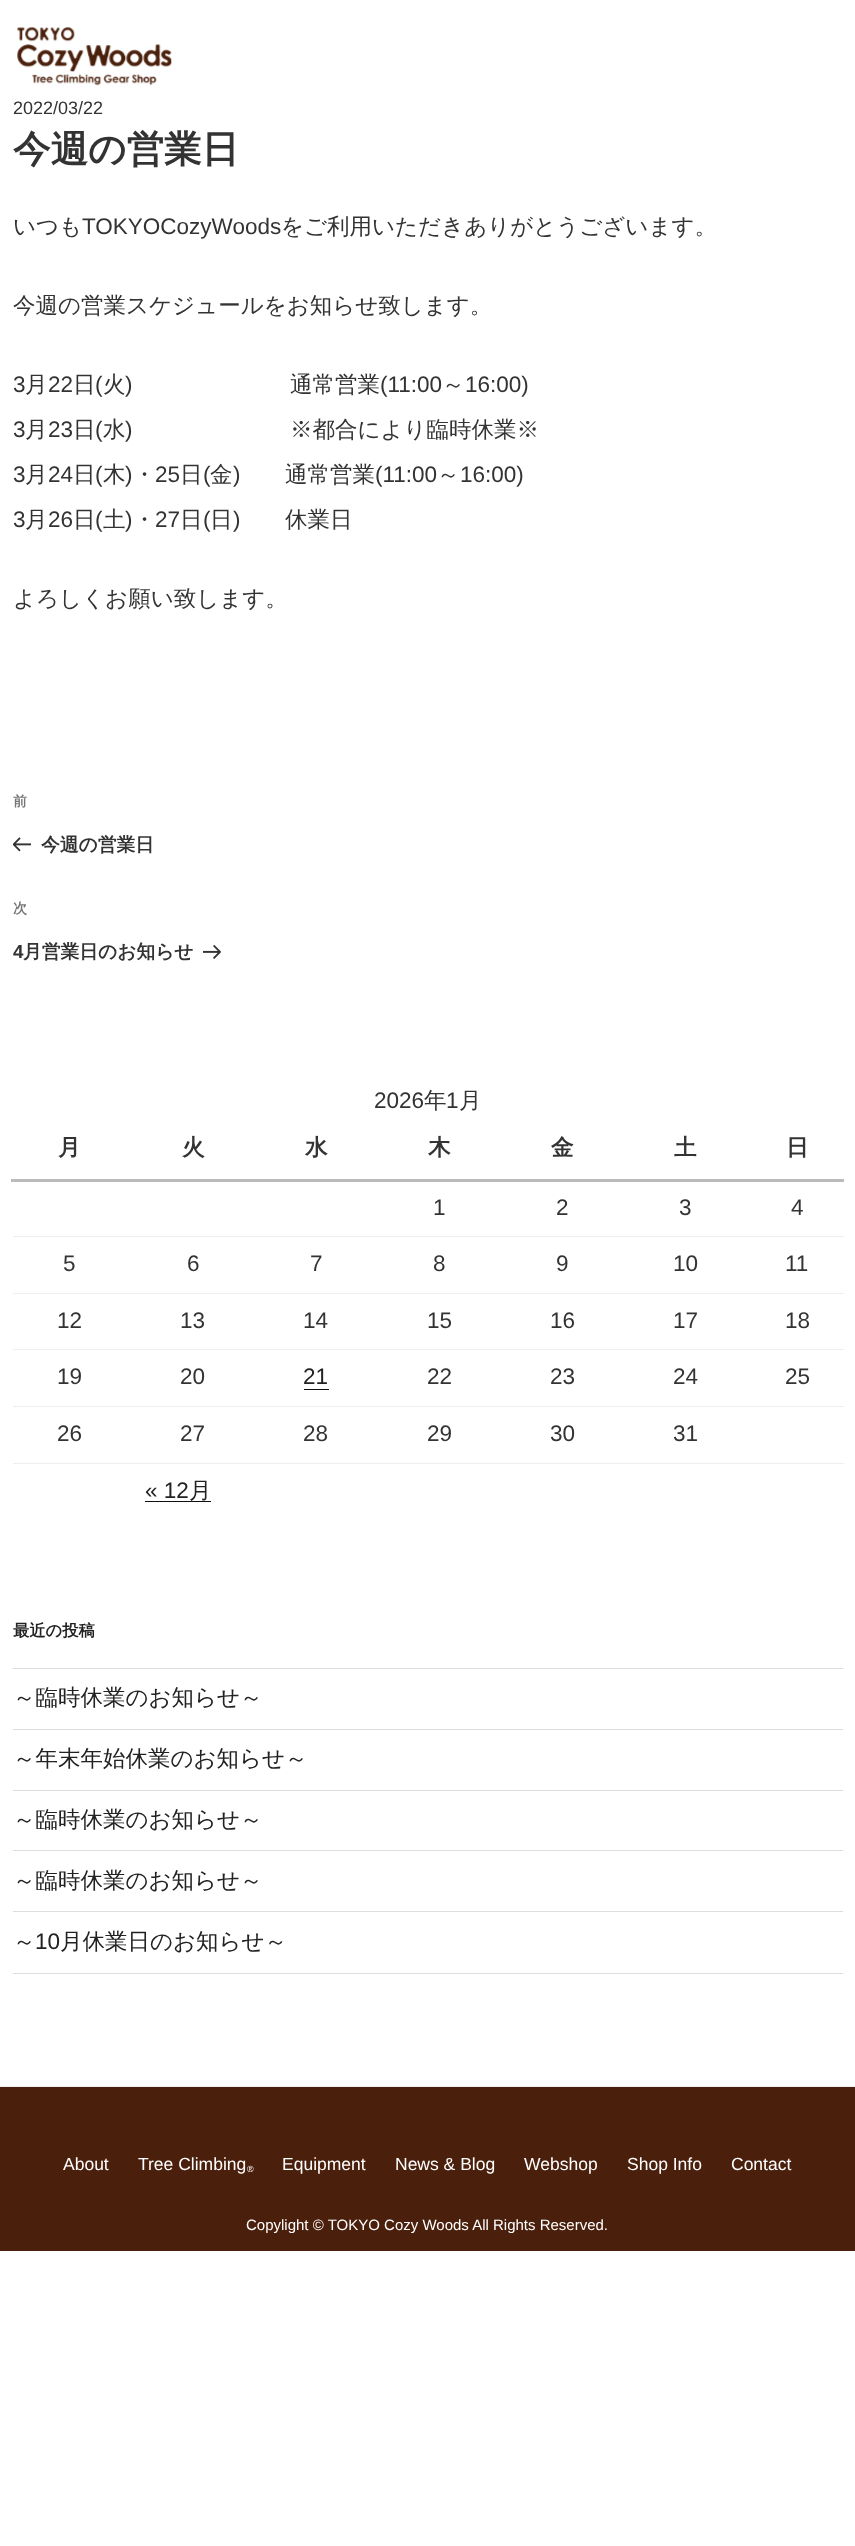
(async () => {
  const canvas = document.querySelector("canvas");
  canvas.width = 855;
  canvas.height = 2546;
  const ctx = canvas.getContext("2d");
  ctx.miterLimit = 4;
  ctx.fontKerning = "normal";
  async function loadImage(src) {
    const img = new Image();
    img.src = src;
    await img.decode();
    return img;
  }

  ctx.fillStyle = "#ffffff";
  ctx.fillRect(0, 0, 855, 2546);
  ctx.drawImage(await loadImage("img/1.png"), 17, 27, 155, 59);
  ctx.drawImage(await loadImage("img/2.png"), 13, 837, 18, 15);
  ctx.drawImage(await loadImage("img/3.png"), 203, 945, 18, 14);
  for (const [x, y, w, h, color] of [
    [11, 1179, 833, 3, "#bbbbbb"],
    [13, 1236, 831, 1, "#eeeeee"],
    [13, 1293, 831, 1, "#eeeeee"],
    [13, 1349, 831, 1, "#eeeeee"],
    [13, 1406, 831, 1, "#eeeeee"],
    [304, 1389, 25, 1, "#0f0f0f"],
    [13, 1463, 831, 1, "#eeeeee"],
    [145, 1501, 66, 1, "#0f0f0f"],
    [13, 1668, 830, 1, "#dddddd"],
    [13, 1729, 830, 1, "#dddddd"],
    [13, 1790, 830, 1, "#dddddd"],
    [13, 1850, 830, 1, "#dddddd"],
    [13, 1911, 830, 1, "#dddddd"],
    [13, 1973, 830, 1, "#dddddd"],
    [0, 2087, 855, 164, "#4a1f0c"],
    [0, 2086, 855, 1, "#eeeeee"],
  ]) {
    ctx.fillStyle = color;
    ctx.fillRect(x, y, w, h);
  }
  ctx.font = "18px Liberation Sans";
  ctx.fillStyle = "#333333";
  ctx.fillText("2022/03/22", 13, 114);
  ctx.font = "bold 37.5px WenQuanYi Zen Hei";
  ctx.fillText("今週の営業日", 13, 162);
  ctx.font = "500 22.5px WenQuanYi Zen Hei";
  ctx.fillText("いつも", 13, 234);
  ctx.font = "22.5px Liberation Sans";
  ctx.fillText("TOKYOCozyWoods", 82, 234);
  ctx.font = "500 22.5px WenQuanYi Zen Hei";
  ctx.fillText("をご利用いただきありがとうございます。", 281, 234);
  ctx.fillText("今週の営業スケジュールをお知らせ致します。", 13, 313);
  ctx.font = "22.5px Liberation Sans";
  ctx.fillText("3", 13, 392);
  ctx.font = "500 22.5px WenQuanYi Zen Hei";
  ctx.fillText("月", 25, 392);
  ctx.font = "22.5px Liberation Sans";
  ctx.fillText("22", 48, 392);
  ctx.font = "500 22.5px WenQuanYi Zen Hei";
  ctx.fillText("日", 73, 392);
  ctx.font = "22.5px Liberation Sans";
  ctx.fillText("(", 95, 392);
  ctx.font = "500 22.5px WenQuanYi Zen Hei";
  ctx.fillText("火", 103, 392);
  ctx.font = "22.5px Liberation Sans";
  ctx.fillText(")", 125, 392);
  ctx.font = "500 22.5px WenQuanYi Zen Hei";
  ctx.fillText("通常営業", 290, 392);
  ctx.font = "22.5px Liberation Sans";
  ctx.fillText("(11:00", 380, 392);
  ctx.font = "500 22.5px WenQuanYi Zen Hei";
  ctx.fillText("～", 442, 392);
  ctx.font = "22.5px Liberation Sans";
  ctx.fillText("16:00)", 465, 392);
  ctx.fillText("3", 13, 437);
  ctx.font = "500 22.5px WenQuanYi Zen Hei";
  ctx.fillText("月", 25, 437);
  ctx.font = "22.5px Liberation Sans";
  ctx.fillText("23", 48, 437);
  ctx.font = "500 22.5px WenQuanYi Zen Hei";
  ctx.fillText("日", 73, 437);
  ctx.font = "22.5px Liberation Sans";
  ctx.fillText("(", 95, 437);
  ctx.font = "500 22.5px WenQuanYi Zen Hei";
  ctx.fillText("水", 103, 437);
  ctx.font = "22.5px Liberation Sans";
  ctx.fillText(")", 125, 437);
  ctx.font = "500 22.5px WenQuanYi Zen Hei";
  ctx.fillText("※都合により臨時休業※", 290, 437);
  ctx.font = "22.5px Liberation Sans";
  ctx.fillText("3", 13, 482);
  ctx.font = "500 22.5px WenQuanYi Zen Hei";
  ctx.fillText("月", 25, 482);
  ctx.font = "22.5px Liberation Sans";
  ctx.fillText("24", 48, 482);
  ctx.font = "500 22.5px WenQuanYi Zen Hei";
  ctx.fillText("日", 73, 482);
  ctx.font = "22.5px Liberation Sans";
  ctx.fillText("(", 95, 482);
  ctx.font = "500 22.5px WenQuanYi Zen Hei";
  ctx.fillText("木", 103, 482);
  ctx.font = "22.5px Liberation Sans";
  ctx.fillText(")", 125, 482);
  ctx.font = "500 22.5px WenQuanYi Zen Hei";
  ctx.fillText("・", 133, 482);
  ctx.font = "22.5px Liberation Sans";
  ctx.fillText("25", 155, 482);
  ctx.font = "500 22.5px WenQuanYi Zen Hei";
  ctx.fillText("日", 180, 482);
  ctx.font = "22.5px Liberation Sans";
  ctx.fillText("(", 203, 482);
  ctx.font = "500 22.5px WenQuanYi Zen Hei";
  ctx.fillText("金", 210, 482);
  ctx.font = "22.5px Liberation Sans";
  ctx.fillText(")", 233, 482);
  ctx.font = "500 22.5px WenQuanYi Zen Hei";
  ctx.fillText("通常営業", 285, 482);
  ctx.font = "22.5px Liberation Sans";
  ctx.fillText("(11:00", 375, 482);
  ctx.font = "500 22.5px WenQuanYi Zen Hei";
  ctx.fillText("～", 437, 482);
  ctx.font = "22.5px Liberation Sans";
  ctx.fillText("16:00)", 460, 482);
  ctx.fillText("3", 13, 527);
  ctx.font = "500 22.5px WenQuanYi Zen Hei";
  ctx.fillText("月", 25, 527);
  ctx.font = "22.5px Liberation Sans";
  ctx.fillText("26", 48, 527);
  ctx.font = "500 22.5px WenQuanYi Zen Hei";
  ctx.fillText("日", 73, 527);
  ctx.font = "22.5px Liberation Sans";
  ctx.fillText("(", 95, 527);
  ctx.font = "500 22.5px WenQuanYi Zen Hei";
  ctx.fillText("土", 103, 527);
  ctx.font = "22.5px Liberation Sans";
  ctx.fillText(")", 125, 527);
  ctx.font = "500 22.5px WenQuanYi Zen Hei";
  ctx.fillText("・", 133, 527);
  ctx.font = "22.5px Liberation Sans";
  ctx.fillText("27", 155, 527);
  ctx.font = "500 22.5px WenQuanYi Zen Hei";
  ctx.fillText("日", 180, 527);
  ctx.font = "22.5px Liberation Sans";
  ctx.fillText("(", 203, 527);
  ctx.font = "500 22.5px WenQuanYi Zen Hei";
  ctx.fillText("日", 210, 527);
  ctx.font = "22.5px Liberation Sans";
  ctx.fillText(")", 233, 527);
  ctx.font = "500 22.5px WenQuanYi Zen Hei";
  ctx.fillText("休業日", 285, 527);
  ctx.fillText("よろしくお願い致します。", 13, 606);
  ctx.font = "bold 14px WenQuanYi Zen Hei";
  ctx.fillStyle = "#767676";
  ctx.fillText("前", 13, 806);
  ctx.font = "bold 18.75px WenQuanYi Zen Hei";
  ctx.fillStyle = "#333333";
  ctx.fillText("今週の営業日", 41, 851);
  ctx.font = "bold 14px WenQuanYi Zen Hei";
  ctx.fillStyle = "#767676";
  ctx.fillText("次", 13, 913);
  ctx.font = "bold 18.75px Liberation Sans";
  ctx.fillStyle = "#333333";
  ctx.fillText("4", 13, 958);
  ctx.font = "bold 18.75px WenQuanYi Zen Hei";
  ctx.fillText("月営業日のお知らせ", 23, 958);
  ctx.font = "22.5px Liberation Sans";
  ctx.fillText("2026", 374, 1108);
  ctx.font = "500 22.5px WenQuanYi Zen Hei";
  ctx.fillText("年", 424, 1108);
  ctx.font = "22.5px Liberation Sans";
  ctx.fillText("1", 446, 1108);
  ctx.font = "500 22.5px WenQuanYi Zen Hei";
  ctx.fillText("月", 459, 1108);
  ctx.font = "bold 22.5px WenQuanYi Zen Hei";
  for (const [text, x, y] of [
    ["月", 58, 1155],
    ["火", 182, 1155],
    ["水", 305, 1155],
    ["木", 428, 1155],
    ["金", 551, 1155],
    ["土", 674, 1155],
    ["日", 786, 1155],
  ]) {
    ctx.fillText(text, x, y);
  }
  ctx.font = "22.5px Liberation Sans";
  for (const [text, x, y] of [
    ["1", 433, 1215],
    ["2", 556, 1215],
    ["3", 679, 1215],
    ["4", 791, 1215],
    ["5", 63, 1271],
    ["6", 187, 1271],
    ["7", 310, 1271],
    ["8", 433, 1271],
    ["9", 556, 1271],
    ["10", 673, 1271],
    ["11", 785, 1271],
    ["12", 57, 1328],
    ["13", 180, 1328],
    ["14", 303, 1328],
    ["15", 427, 1328],
    ["16", 550, 1328],
    ["17", 673, 1328],
    ["18", 785, 1328],
    ["19", 57, 1384],
    ["20", 180, 1384],
  ]) {
    ctx.fillText(text, x, y);
  }
  ctx.fillStyle = "#222222";
  ctx.fillText("21", 303, 1384);
  ctx.fillStyle = "#333333";
  for (const [text, x, y] of [
    ["22", 427, 1384],
    ["23", 550, 1384],
    ["24", 673, 1384],
    ["25", 785, 1384],
    ["26", 57, 1441],
    ["27", 180, 1441],
    ["28", 303, 1441],
    ["29", 427, 1441],
    ["30", 550, 1441],
    ["31", 673, 1441],
  ]) {
    ctx.fillText(text, x, y);
  }
  ctx.fillStyle = "#222222";
  ctx.fillText("« 12", 145, 1498);
  ctx.font = "500 22.5px WenQuanYi Zen Hei";
  ctx.fillText("月", 189, 1498);
  ctx.font = "bold 16.25px WenQuanYi Zen Hei";
  ctx.fillText("最近の投稿", 13, 1636);
  ctx.font = "500 22.5px WenQuanYi Zen Hei";
  for (const [text, x, y] of [
    ["～臨時休業のお知らせ～", 13, 1705],
    ["～年末年始休業のお知らせ～", 13, 1766],
    ["～臨時休業のお知らせ～", 13, 1827],
    ["～臨時休業のお知らせ～", 13, 1888],
    ["～", 13, 1949],
  ]) {
    ctx.fillText(text, x, y);
  }
  ctx.font = "22.5px Liberation Sans";
  ctx.fillText("10", 35, 1949);
  ctx.font = "500 22.5px WenQuanYi Zen Hei";
  ctx.fillText("月休業日のお知らせ～", 60, 1949);
  ctx.font = "17.5px Liberation Sans";
  ctx.fillStyle = "#ffffff";
  ctx.fillText("About", 63, 2170);
  ctx.fillText("Tree Climbing", 138, 2170);
  ctx.font = "9px Liberation Sans";
  ctx.fillText("®", 247, 2172);
  ctx.font = "17.5px Liberation Sans";
  for (const [text, x, y] of [
    ["Equipment", 282, 2170],
    ["News & Blog", 395, 2170],
    ["Webshop", 524, 2170],
    ["Shop Info", 627, 2170],
    ["Contact", 731, 2170],
  ]) {
    ctx.fillText(text, x, y);
  }
  ctx.font = "15px Liberation Sans";
  ctx.fillText("Copylight © TOKYO Cozy Woods All Rights Reserved.", 246, 2230);
})();
